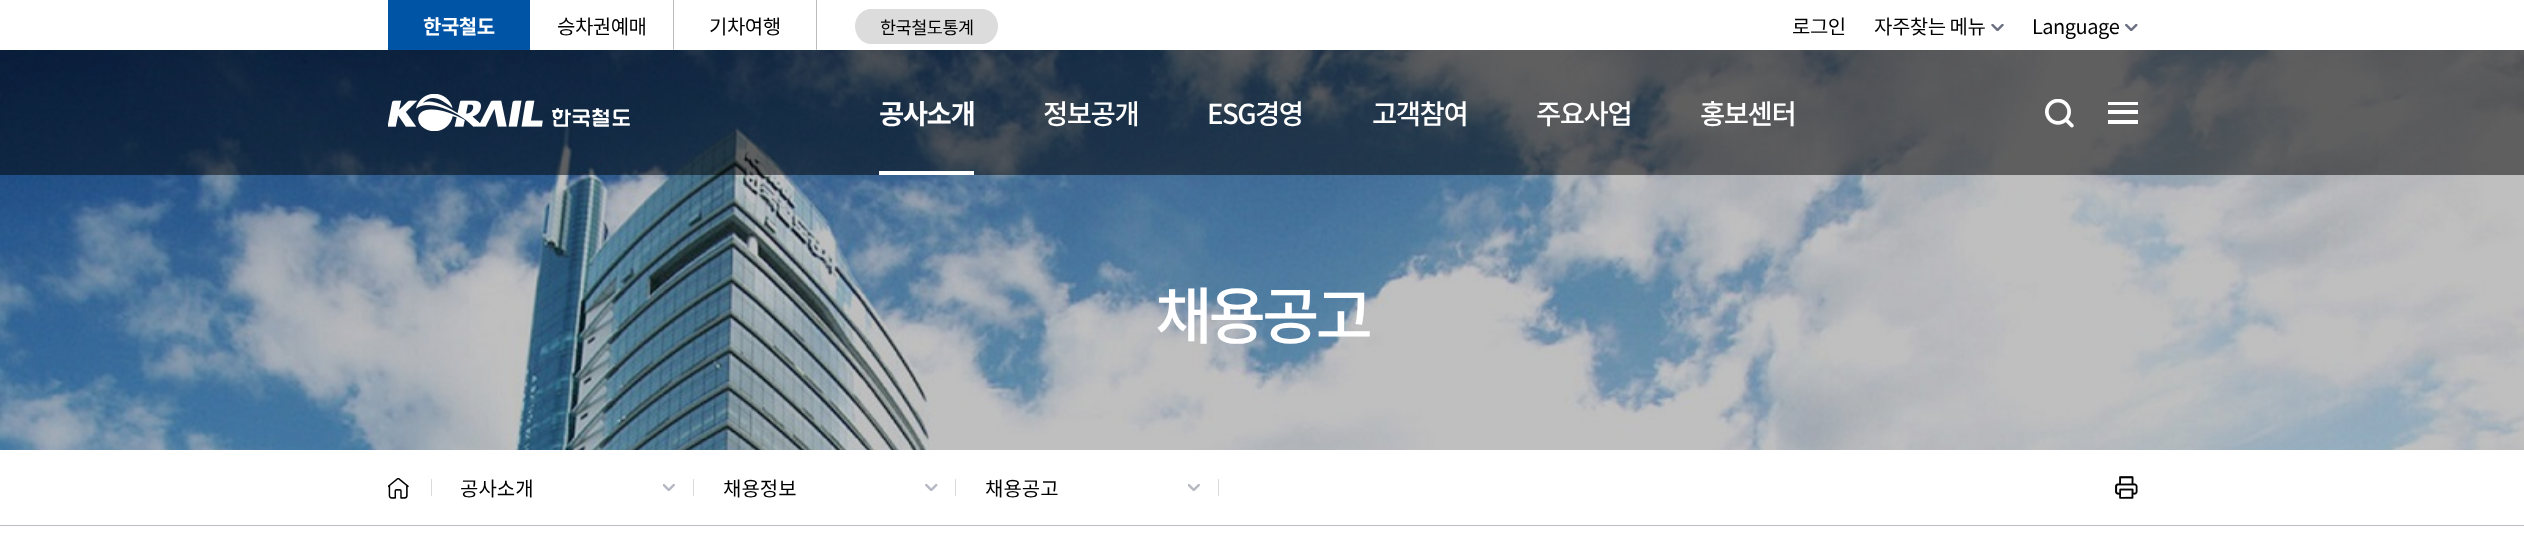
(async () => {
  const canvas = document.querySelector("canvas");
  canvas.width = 2524;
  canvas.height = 537;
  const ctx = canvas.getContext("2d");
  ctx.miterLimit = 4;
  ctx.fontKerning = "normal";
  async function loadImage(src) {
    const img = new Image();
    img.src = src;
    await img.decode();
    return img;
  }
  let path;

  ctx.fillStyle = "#ffffff";
  ctx.fillRect(0, 0, 2524, 537);
  ctx.fillStyle = "#0054a6";
  ctx.fillRect(389, 1, 140, 48);
  ctx.strokeStyle = "#0054a6";
  ctx.strokeRect(388.5, 0.5, 141, 49);
  for (const [x, y, w, h, color] of [
    [673, 0, 1, 50, "#bbbbbb"],
    [673, 49, 1, 1, "#c9c9c9"],
    [816, 0, 1, 50, "#bbbbbb"],
    [816, 49, 1, 1, "#c9c9c9"],
  ]) {
    ctx.fillStyle = color;
    ctx.fillRect(x, y, w, h);
  }
  ctx.fillStyle = "#dcdcdc";
  path = new Path2D("M871 9H982C991 9 998 17 998 26C998 36 991 44 982 44H871C862 44 855 36 855 26C855 17 862 9 871 9Z");
  ctx.fill(path);
  ctx.drawImage(await loadImage("img/1.png"), 1991, 24, 13, 7);
  ctx.drawImage(await loadImage("img/2.png"), 2125, 24, 13, 7);
  ctx.drawImage(await loadImage("img/5.png"), 0, 50, 2524, 400);
  ctx.fillStyle = "rgba(0, 0, 0, 0.5)";
  ctx.fillRect(0, 50, 2524, 125);
  ctx.drawImage(await loadImage("img/3.png"), 388, 94, 242, 37);
  ctx.fillStyle = "#ffffff";
  ctx.fillRect(879, 171, 95, 4);
  ctx.drawImage(await loadImage("img/4.png"), 2045, 99, 29, 29);
  for (const [x, y, w, h, color] of [
    [2108, 102, 30, 3, "#ffffff"],
    [2108, 110, 30, 4, "#ffffff"],
    [2108, 120, 30, 4, "#ffffff"],
  ]) {
    ctx.fillStyle = color;
    ctx.fillRect(x, y, w, h);
  }
  ctx.drawImage(await loadImage("img/6.png"), 388, 478, 21, 21);
  ctx.fillStyle = "#dbdbdb";
  ctx.fillRect(431, 479, 1, 17);
  ctx.drawImage(await loadImage("img/7.png"), 663, 484, 12, 7);
  ctx.fillRect(693, 479, 1, 17);
  ctx.drawImage(await loadImage("img/8.png"), 925, 484, 13, 7);
  ctx.fillRect(955, 479, 1, 17);
  ctx.drawImage(await loadImage("img/7.png"), 1188, 484, 12, 7);
  ctx.fillRect(1218, 479, 1, 17);
  ctx.drawImage(await loadImage("img/9.png"), 2115, 476, 23, 23);
  ctx.fillStyle = "#bcbec6";
  ctx.fillRect(0, 525, 2524, 1);
  ctx.letterSpacing = "-0.5px";
  ctx.font = "20px 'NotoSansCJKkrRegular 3'";
  ctx.fillStyle = "#ffffff";
  ctx.fillText("한국철도", 423, 34);
  ctx.font = "20px 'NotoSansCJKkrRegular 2'";
  ctx.fillStyle = "#000000";
  ctx.fillText("승차권예매", 557, 34);
  ctx.fillText("기차여행", 709, 34);
  ctx.font = "17.5px 'NotoSansCJKkrRegular 2'";
  ctx.fillText("한국철도통계", 880, 34);
  ctx.font = "20px 'NotoSansCJKkrRegular 2'";
  for (const [text, x, y] of [
    ["로그인", 1792, 34],
    ["자주찾는 메뉴", 1874, 34],
    ["Language", 2032, 34],
  ]) {
    ctx.fillText(text, x, y);
  }
  ctx.letterSpacing = "-1.5px";
  ctx.font = "27.5px 'NotoSansCJKkrRegular 3'";
  ctx.fillStyle = "#ffffff";
  ctx.fillText("공사소개", 879, 124);
  ctx.font = "27.5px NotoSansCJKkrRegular";
  for (const [text, x, y] of [
    ["정보공개", 1043, 124],
    ["ESG경영", 1207, 124],
    ["고객참여", 1372, 124],
    ["주요사업", 1536, 124],
    ["홍보센터", 1700, 124],
  ]) {
    ctx.fillText(text, x, y);
  }
  ctx.letterSpacing = "-4px";
  ctx.font = "62.5px NotoSansCJKkrRegular";
  ctx.fillText("채용공고", 1155, 339);
  ctx.letterSpacing = "0px";
  ctx.font = "20px 'NotoSansCJKkrRegular 2'";
  ctx.fillStyle = "#000000";
  for (const [text, x, y] of [
    ["공사소개", 460, 496],
    ["채용정보", 723, 496],
    ["채용공고", 985, 496],
  ]) {
    ctx.fillText(text, x, y);
  }
})();
